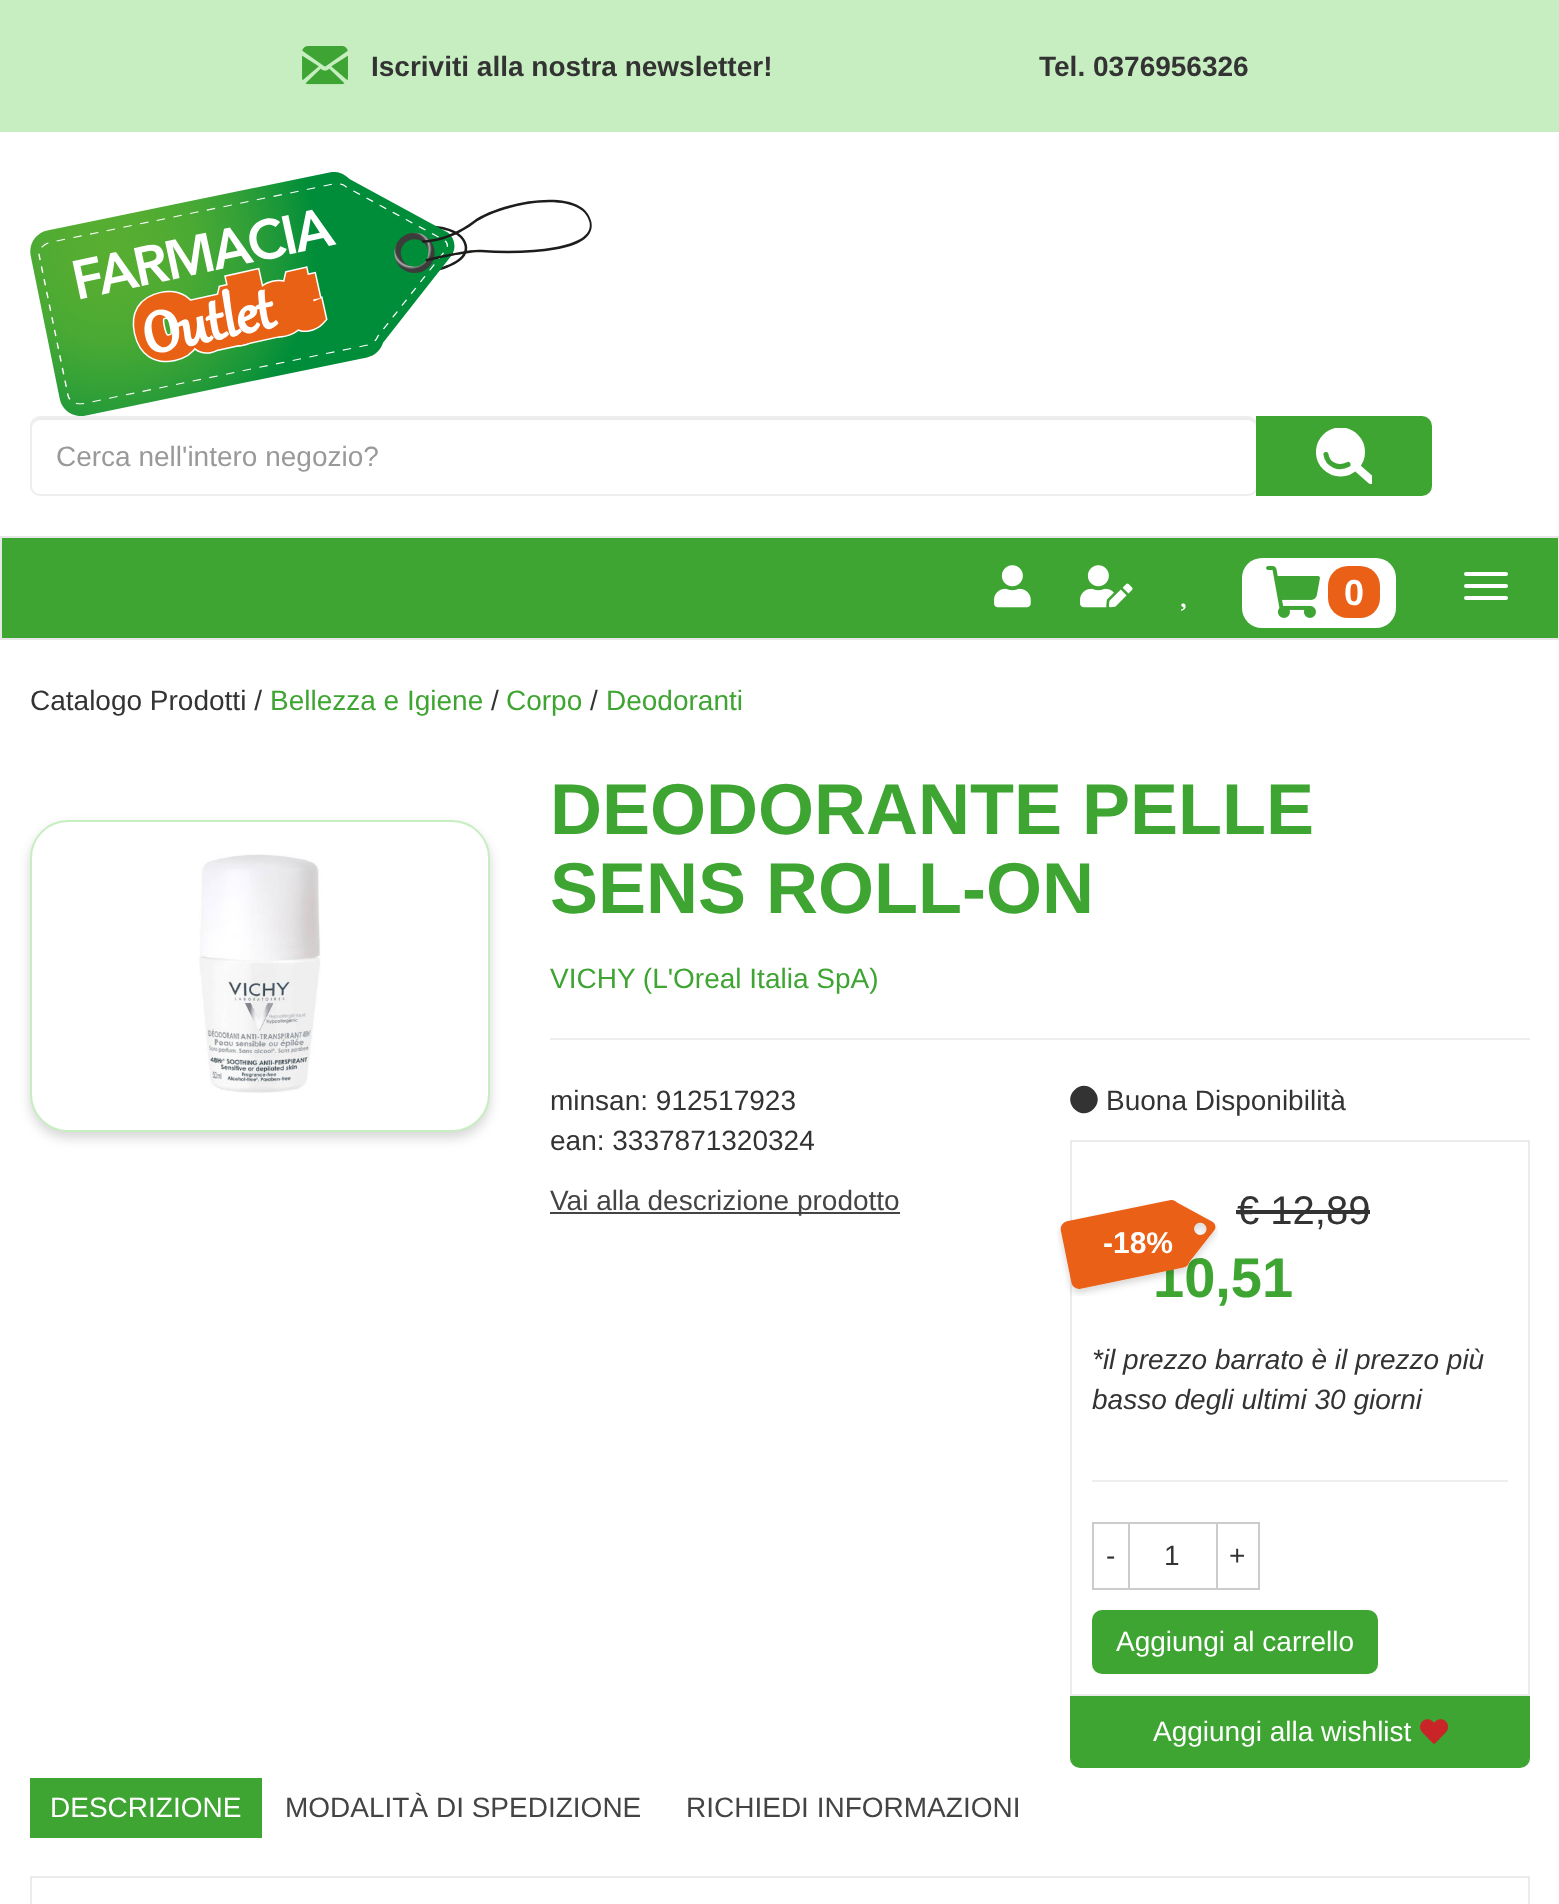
(async () => {
  const canvas = document.querySelector("canvas");
  canvas.width = 1559;
  canvas.height = 1904;
  const ctx = canvas.getContext("2d");
  ctx.miterLimit = 4;
  ctx.fontKerning = "normal";
  async function loadImage(src) {
    const img = new Image();
    img.src = src;
    await img.decode();
    return img;
  }
  let path;

  ctx.fillStyle = "#ffffff";
  ctx.fillRect(0, 0, 1559, 1904);
  ctx.fillStyle = "#c7eec0";
  ctx.fillRect(0, 0, 1559, 132);
  ctx.drawImage(await loadImage("img/1.png"), 302, 46, 46, 39);
  ctx.drawImage(await loadImage("img/2.png"), 30, 172, 562, 244);
  ctx.fillStyle = "#ececec";
  path = new Path2D("M40 420H1248C1252 420 1256 424 1256 428V426C1256 422 1252 418 1248 418H40C36 418 32 422 32 426V428C32 424 36 420 40 420Z");
  ctx.fill(path);
  ctx.beginPath();
  ctx.roundRect(31, 417, 1226, 78, 9);
  ctx.strokeStyle = "#eeeeee";
  ctx.lineWidth = 2;
  ctx.stroke();
  ctx.fillStyle = "#3ea532";
  ctx.beginPath();
  ctx.roundRect(1256, 416, 176, 80, [0, 10, 10, 0]);
  ctx.fill();
  ctx.fillStyle = "#ffffff";
  ctx.beginPath();
  ctx.arc(1340.5, 452, 20.5, 0, Math.PI * 2);
  ctx.fill();
  ctx.save();
  ctx.beginPath();
  ctx.rect(1316, 428, 56, 56);
  ctx.clip();
  ctx.beginPath();
  ctx.arc(1340.5, 452, 20.5, 0, Math.PI * 2);
  ctx.strokeStyle = "#ffffff";
  ctx.lineWidth = 8.1;
  ctx.stroke();
  path = new Path2D("M1371 480L1358.5 469");
  ctx.lineCap = "round";
  ctx.lineJoin = "round";
  ctx.stroke(path);
  ctx.restore();
  path = new Path2D("M1326 454.5C1327.5 465 1339 469.5 1348 464.5");
  ctx.strokeStyle = "#3ea535";
  ctx.lineWidth = 5.1;
  ctx.lineCap = "round";
  ctx.stroke(path);
  ctx.fillStyle = "#3ea532";
  ctx.beginPath();
  ctx.rect(1, 537, 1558, 102);
  ctx.fill();
  ctx.strokeStyle = "#e7e7e7";
  ctx.lineWidth = 2;
  ctx.stroke();
  ctx.drawImage(await loadImage("img/3.png"), 994, 565, 37, 43);
  ctx.drawImage(await loadImage("img/4.png"), 1080, 565, 53, 43);
  ctx.fillStyle = "#ffffff";
  ctx.beginPath();
  ctx.roundRect(1242, 558, 154, 70, 20);
  ctx.fill();
  ctx.drawImage(await loadImage("img/5.png"), 1266, 566, 54, 52);
  ctx.fillStyle = "#ea6016";
  ctx.beginPath();
  ctx.roundRect(1328, 566, 52, 52, 20);
  ctx.fill();
  ctx.fillStyle = "#ffffff";
  ctx.beginPath();
  ctx.roundRect(1464, 572, 44, 4, 2);
  ctx.fill();
  ctx.beginPath();
  ctx.roundRect(1464, 584, 44, 4, 2);
  ctx.fill();
  ctx.beginPath();
  ctx.roundRect(1464, 596, 44, 4, 2);
  ctx.fill();
  ctx.drawImage(await loadImage("img/6.png"), 1181, 603, 5, 8);
  ctx.fillStyle = "rgba(0, 0, 0, 0.16)";
  ctx.filter = "blur(6px)";
  ctx.beginPath();
  ctx.roundRect(30, 826, 460, 312, 38);
  ctx.fill();
  ctx.filter = "none";
  ctx.fillStyle = "#ffffff";
  ctx.beginPath();
  ctx.roundRect(31, 821, 458, 310, 37);
  ctx.fill();
  ctx.strokeStyle = "#c7eec0";
  ctx.stroke();
  ctx.drawImage(await loadImage("img/7.png"), 199, 854, 122, 239);
  ctx.fillStyle = "#eeeeee";
  ctx.fillRect(550, 1038, 980, 2);
  ctx.fillStyle = "#444444";
  ctx.fillRect(550, 1212, 350, 2);
  ctx.fillStyle = "#333333";
  path = new Path2D("M1074.5 1090C1087 1077 1106.5 1096.5 1093.5 1109C1081 1122 1061.5 1102.5 1074.5 1090Z");
  ctx.fill(path);
  ctx.strokeStyle = "#ebebeb";
  ctx.strokeRect(1071, 1141, 458, 554);
  ctx.fillRect(1236, 1210, 134, 4);
  ctx.fillStyle = "#eeeeee";
  ctx.fillRect(1092, 1480, 416, 2);
  ctx.strokeStyle = "#cccccc";
  ctx.strokeRect(1093, 1523, 36, 66);
  ctx.strokeRect(1129, 1523, 88, 66);
  ctx.strokeRect(1217, 1523, 42, 66);
  ctx.fillStyle = "#3ea532";
  ctx.beginPath();
  ctx.roundRect(1092, 1610, 286, 64, 10);
  ctx.fill();
  ctx.beginPath();
  ctx.roundRect(1070, 1696, 460, 72, [0, 0, 10, 10]);
  ctx.fill();
  ctx.drawImage(await loadImage("img/9.png"), 1420, 1719, 29, 25);
  ctx.fillRect(30, 1778, 232, 60);
  ctx.strokeStyle = "#ebebeb";
  ctx.strokeRect(31, 1877, 1498, 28);
  ctx.font = "bold 28px Liberation Sans";
  ctx.fillStyle = "#333333";
  ctx.fillText("Iscriviti alla nostra newsletter!", 371, 76);
  ctx.fillText("Tel. 0376956326", 1039, 76);
  ctx.font = "28px Liberation Sans";
  ctx.fillStyle = "#999999";
  ctx.fillText("Cerca nell'intero negozio?", 56, 466);
  ctx.font = "bold 36px Liberation Sans";
  ctx.fillStyle = "#ffffff";
  ctx.fillText("0", 1344, 605);
  ctx.font = "28px Liberation Sans";
  ctx.fillStyle = "#333333";
  ctx.fillText("Catalogo Prodotti /", 30, 710);
  ctx.fillStyle = "#3ea532";
  ctx.fillText("Bellezza e Igiene", 270, 710);
  ctx.fillStyle = "#333333";
  ctx.fillText("/", 491, 710);
  ctx.fillStyle = "#3ea532";
  ctx.fillText("Corpo", 506, 710);
  ctx.fillStyle = "#333333";
  ctx.fillText("/", 590, 710);
  ctx.fillStyle = "#3ea532";
  ctx.fillText("Deodoranti", 606, 710);
  ctx.font = "bold 72px Liberation Sans";
  ctx.fillText("DEODORANTE PELLE", 550, 834);
  ctx.fillText("SENS ROLL-ON", 550, 913);
  ctx.font = "28px Liberation Sans";
  ctx.fillText("VICHY (L'Oreal Italia SpA)", 550, 988);
  ctx.fillStyle = "#333333";
  ctx.fillText("minsan: 912517923", 550, 1110);
  ctx.fillText("ean: 3337871320324", 550, 1150);
  ctx.fillStyle = "#444444";
  ctx.fillText("Vai alla descrizione prodotto", 550, 1210);
  ctx.fillStyle = "#333333";
  ctx.fillText("Buona Disponibilità", 1106, 1110);
  ctx.font = "40px Liberation Sans";
  ctx.fillText("€ 12,89", 1237, 1224);
  ctx.font = "bold 56px Liberation Sans";
  ctx.fillStyle = "#3ea532";
  ctx.fillText("10,51", 1153, 1297);
  ctx.drawImage(await loadImage("img/8.png"), 1057, 1200, 161, 96);
  ctx.font = "bold 30px Liberation Sans";
  ctx.fillStyle = "#ffffff";
  ctx.fillText("-18%", 1103, 1253);
  ctx.font = "italic 28px Liberation Sans";
  ctx.fillStyle = "#333333";
  ctx.fillText("*il prezzo barrato è il prezzo più", 1092, 1369);
  ctx.fillText("basso degli ultimi 30 giorni", 1092, 1409);
  ctx.font = "28px Liberation Sans";
  for (const [text, x, y] of [
    ["-", 1106, 1565],
    ["1", 1164, 1565],
    ["+", 1229, 1565],
  ]) {
    ctx.fillText(text, x, y);
  }
  ctx.fillStyle = "#ffffff";
  for (const [text, x, y] of [
    ["Aggiungi al carrello", 1116, 1651],
    ["Aggiungi alla wishlist", 1153, 1741],
    ["DESCRIZIONE", 50, 1817],
  ]) {
    ctx.fillText(text, x, y);
  }
  ctx.fillStyle = "#444444";
  ctx.fillText("MODALITÀ DI SPEDIZIONE", 285, 1817);
  ctx.fillText("RICHIEDI INFORMAZIONI", 686, 1817);
})();
